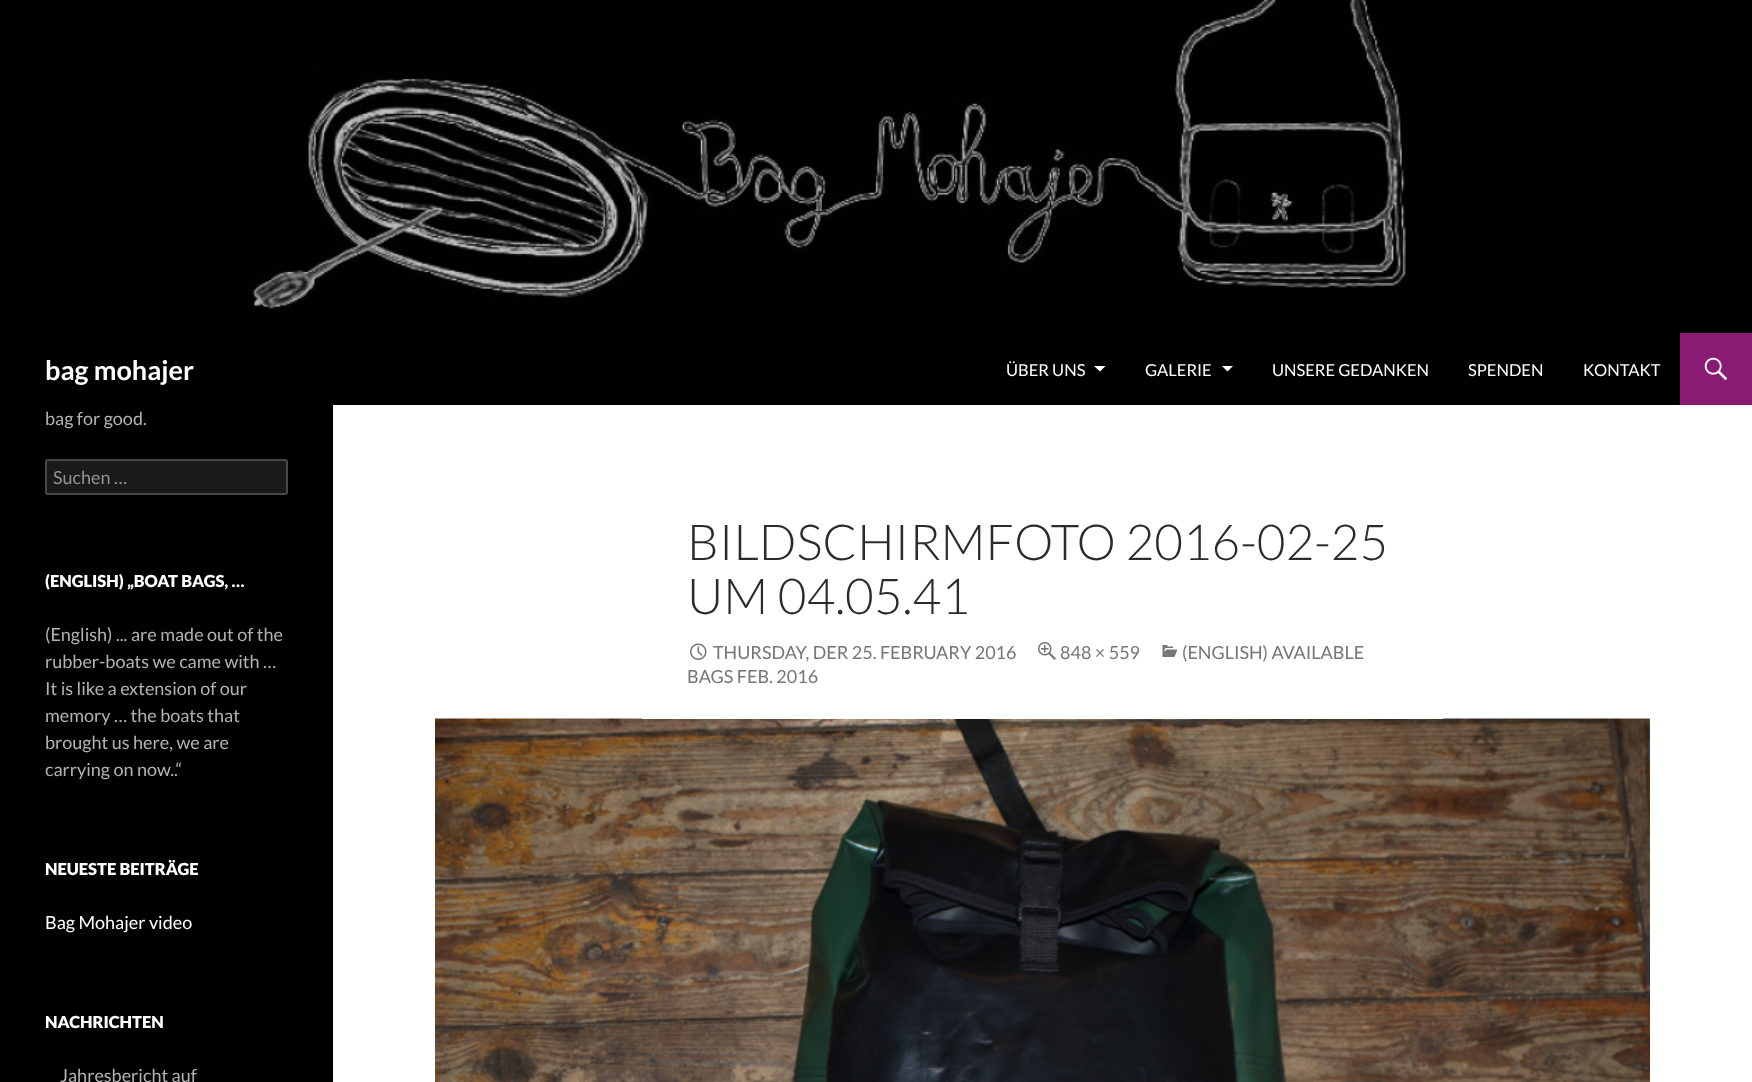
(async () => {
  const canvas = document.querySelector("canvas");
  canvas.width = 1752;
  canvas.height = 1082;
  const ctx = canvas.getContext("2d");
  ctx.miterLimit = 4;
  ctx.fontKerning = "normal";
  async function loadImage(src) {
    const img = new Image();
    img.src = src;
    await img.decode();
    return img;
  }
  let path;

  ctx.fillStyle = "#ffffff";
  ctx.fillRect(0, 0, 1752, 1082);
  ctx.fillStyle = "#000000";
  ctx.fillRect(0, 0, 333, 1082);
  ctx.drawImage(await loadImage("img/1.png"), 245, 0, 1507, 333);
  ctx.fillRect(333, 333, 1347, 72);
  ctx.fillStyle = "#ffffff";
  path = new Path2D("M1094 366L1100 371.5L1105.5 366Z");
  ctx.fill(path);
  path = new Path2D("M1222 366L1227.5 371.5L1233 366Z");
  ctx.fill(path);
  ctx.fillStyle = "#891c72";
  ctx.fillRect(1680, 333, 72, 72);
  ctx.drawImage(await loadImage("img/2.png"), 1704, 357, 24, 24);
  ctx.fillStyle = "#1a1a1a";
  ctx.beginPath();
  ctx.roundRect(45, 459, 243, 36, 3);
  ctx.fill();
  ctx.beginPath();
  ctx.roundRect(46, 460, 241, 34, 2);
  ctx.strokeStyle = "rgba(255, 255, 255, 0.2)";
  ctx.lineWidth = 2;
  ctx.stroke();
  ctx.drawImage(await loadImage("img/6.png"), 435, 718, 1215, 364);
  ctx.fillStyle = "#ffffff";
  ctx.fillRect(642, 718, 801, 1);
  ctx.drawImage(await loadImage("img/3.png"), 1162, 645, 16, 12);
  ctx.drawImage(await loadImage("img/4.png"), 690, 643, 17, 17);
  ctx.drawImage(await loadImage("img/5.png"), 1038, 642, 18, 18);
  ctx.font = "bold 27px Lato";
  ctx.fillText("bag mohajer", 45, 380);
  ctx.font = "16.5px Lato";
  for (const [text, x, y] of [
    ["ÜBER UNS", 1006, 376],
    ["GALERIE", 1145, 376],
    ["UNSERE GEDANKEN", 1272, 376],
    ["SPENDEN", 1468, 376],
    ["KONTAKT", 1583, 376],
  ]) {
    ctx.fillText(text, x, y);
  }
  ctx.font = "18px Lato";
  ctx.fillStyle = "#b3b3b3";
  ctx.fillText("bag for good.", 45, 425);
  ctx.fillStyle = "#939393";
  ctx.fillText("Suchen …", 53, 484);
  ctx.font = "900 16.5px Lato";
  ctx.fillStyle = "#ffffff";
  ctx.fillText("(ENGLISH) „BOAT BAGS, …", 45, 587);
  ctx.font = "18px Lato";
  ctx.fillStyle = "#b3b3b3";
  for (const [text, x, y] of [
    ["(English) ... are made out of the", 45, 641],
    ["rubber-boats we came with …", 45, 668],
    ["It is like a extension of our", 45, 695],
    ["memory … the boats that", 45, 722],
    ["brought us here, we are", 45, 749],
    ["carrying on now..“", 45, 776],
  ]) {
    ctx.fillText(text, x, y);
  }
  ctx.font = "900 16.5px Lato";
  ctx.fillStyle = "#ffffff";
  ctx.fillText("NEUESTE BEITRÄGE", 45, 875);
  ctx.font = "18px Lato";
  ctx.fillText("Bag Mohajer video", 45, 929);
  ctx.font = "900 16.5px Lato";
  ctx.fillText("NACHRICHTEN", 45, 1028);
  ctx.font = "18px Lato";
  ctx.fillStyle = "#b3b3b3";
  ctx.fillText("Jahresbericht auf", 60, 1082);
  ctx.font = "300 49.5px Lato";
  ctx.fillStyle = "#2b2b2b";
  ctx.fillText("BILDSCHIRMFOTO 2016-02-25", 687, 560);
  ctx.fillText("UM 04.05.41", 687, 614);
  ctx.font = "18px Lato";
  ctx.fillStyle = "#767676";
  for (const [text, x, y] of [
    ["(ENGLISH) AVAILABLE", 1182, 659],
    ["BAGS FEB. 2016", 687, 683],
    ["THURSDAY, DER 25. FEBRUARY 2016", 713, 659],
    ["848 × 559", 1060, 659],
  ]) {
    ctx.fillText(text, x, y);
  }
})();
